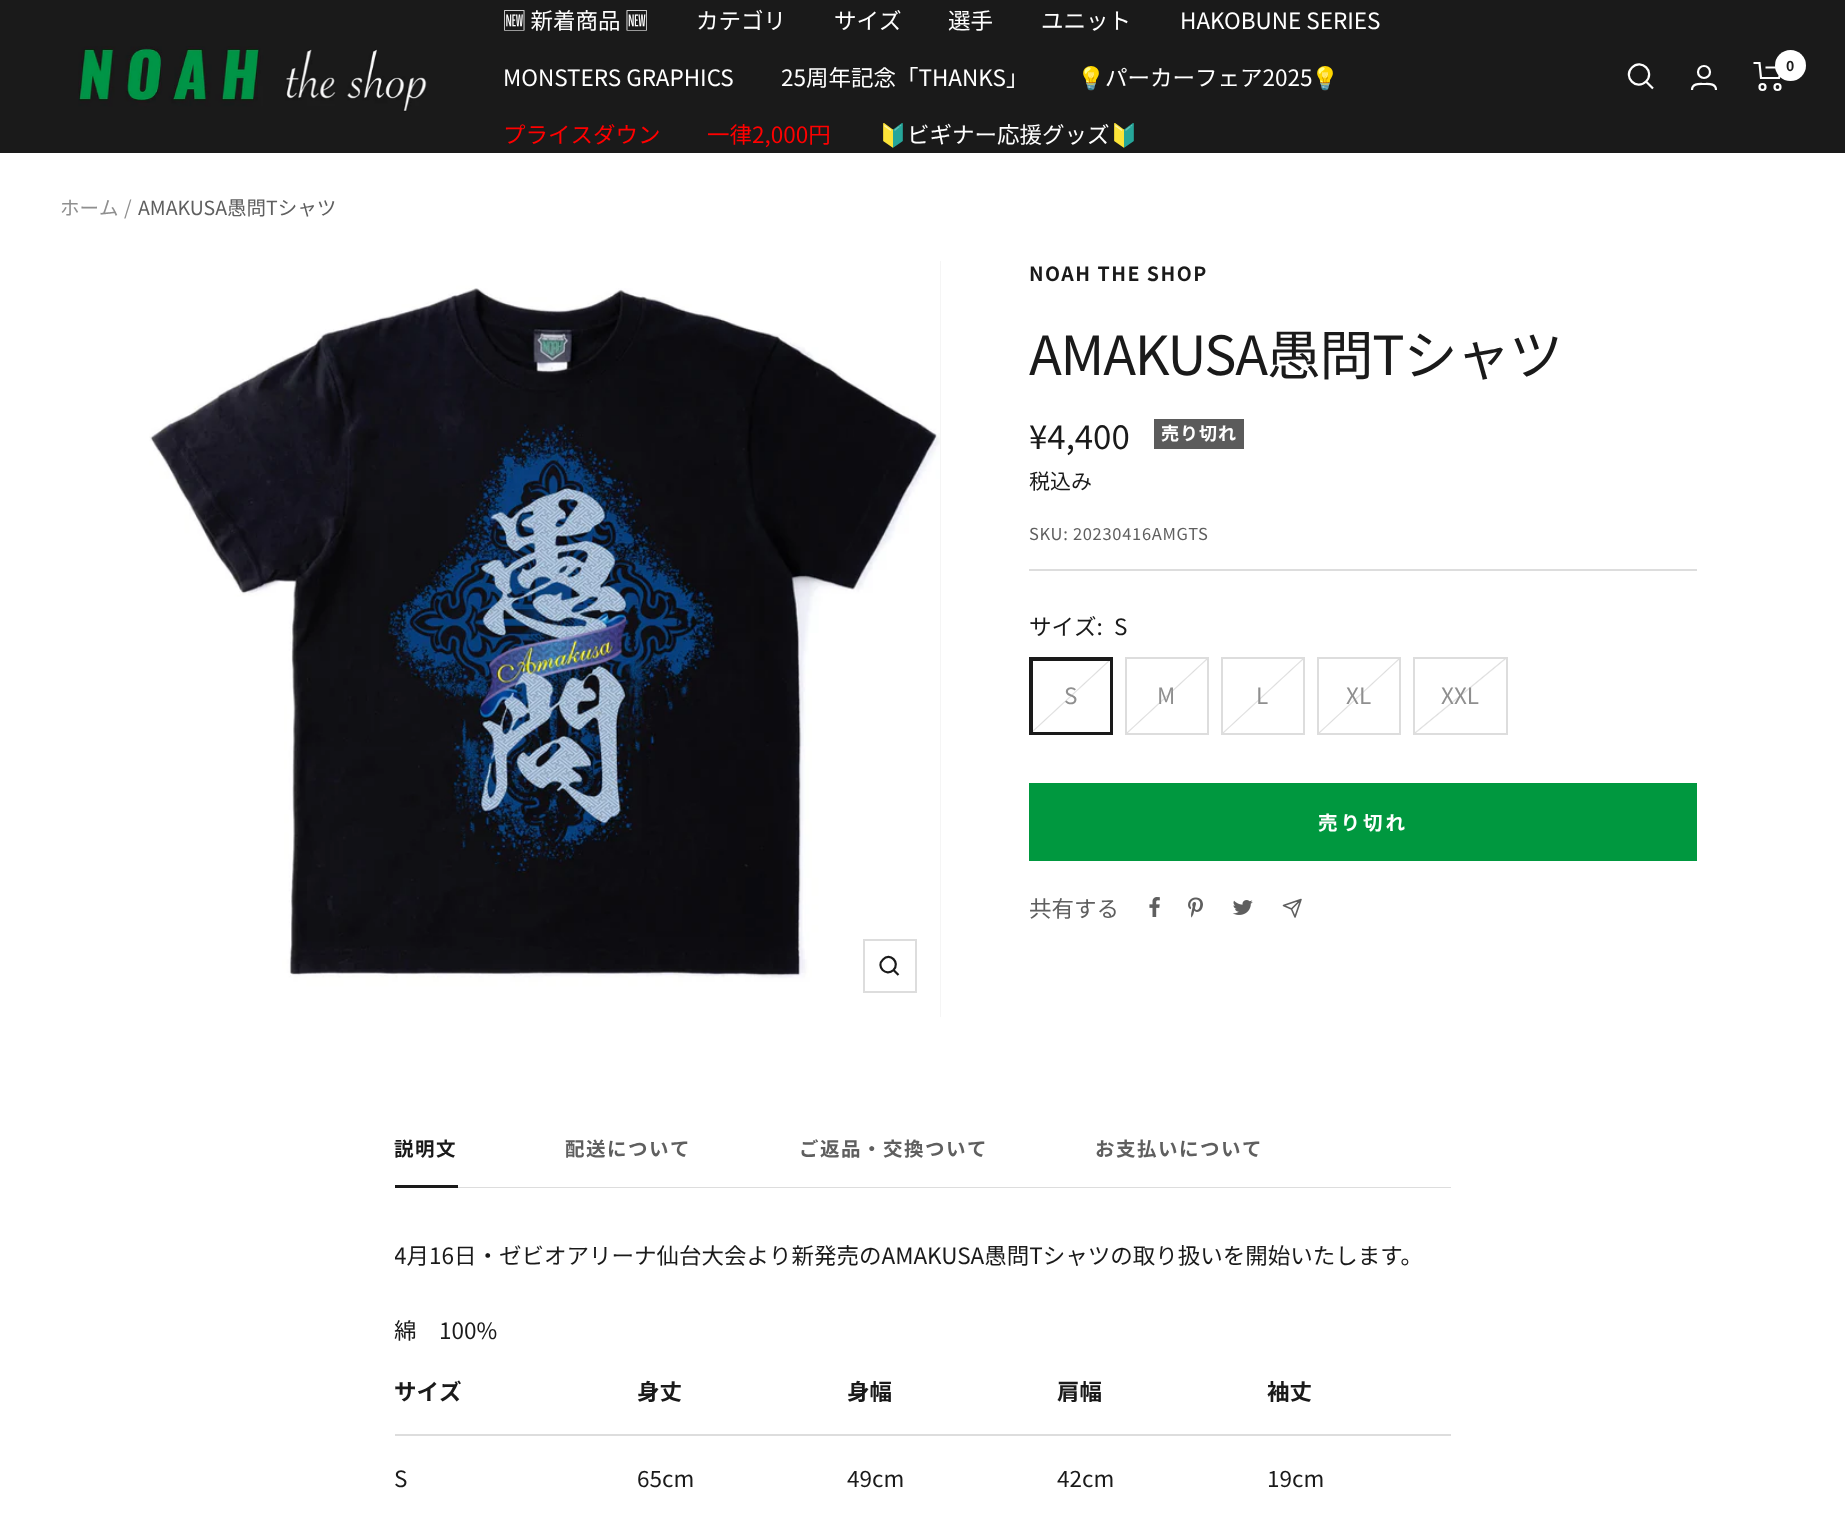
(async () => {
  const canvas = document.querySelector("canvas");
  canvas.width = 1845;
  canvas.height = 1535;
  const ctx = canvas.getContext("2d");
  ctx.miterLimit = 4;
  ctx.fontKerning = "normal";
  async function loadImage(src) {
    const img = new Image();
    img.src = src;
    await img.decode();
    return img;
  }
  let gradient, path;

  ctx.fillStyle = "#ffffff";
  ctx.fillRect(0, 0, 1845, 1535);
  ctx.fillStyle = "#1a1a1a";
  ctx.fillRect(0, 0, 1845, 153);
  ctx.drawImage(await loadImage("img/1.png"), 78, 46, 349, 66);
  path = new Path2D("M1646 81.5C1655.5 72 1641.5 58 1632 67.5C1622.5 77 1636.5 91 1646 81.5ZM1646 81.5L1653 88.5");
  ctx.strokeStyle = "#ffffff";
  ctx.lineWidth = 2.2;
  ctx.stroke(path);
  ctx.beginPath();
  ctx.arc(1704, 72, 6, 0, Math.PI * 2);
  ctx.stroke();
  path = new Path2D("M1692 90C1692 83 1699.5 84 1704 84C1708.5 84 1716 83 1716 90");
  ctx.stroke(path);
  path = new Path2D("M1753.5 63H1759.5L1761 78H1779L1782 67.5H1765.5");
  ctx.stroke(path);
  ctx.beginPath();
  ctx.arc(1762.5, 87, 3, 0, Math.PI * 2);
  ctx.stroke();
  ctx.beginPath();
  ctx.arc(1777.5, 87, 3, 0, Math.PI * 2);
  ctx.stroke();
  ctx.fillStyle = "#ffffff";
  ctx.beginPath();
  ctx.arc(1790.5, 65.5, 15.5, 0, Math.PI * 2);
  ctx.fill();
  ctx.fillStyle = "#f5f5f5";
  ctx.fillRect(940, 261, 1, 756);
  ctx.drawImage(await loadImage("img/2.png"), 149, 261, 791, 756);
  ctx.strokeStyle = "#dddddd";
  ctx.lineWidth = 2;
  ctx.strokeRect(864, 940, 52, 52);
  path = new Path2D("M893.5 970C900.5 962.5 890 952 883 959.5C875.5 966.5 886 977 893.5 970ZM893.5 970L898.5 975");
  ctx.strokeStyle = "#1a1a1a";
  ctx.lineWidth = 2.2;
  ctx.stroke(path);
  ctx.fillStyle = "#dddddd";
  ctx.fillRect(1029, 569, 668, 2);
  ctx.fillStyle = "#5b5b5b";
  ctx.fillRect(1154, 419, 90, 30);
  gradient = ctx.createLinearGradient(1034, 656, 1108, 736);
  gradient.addColorStop(0.49, "#ffffff");
  gradient.addColorStop(0.5, "#dddddd");
  gradient.addColorStop(0.51, "#ffffff");
  ctx.fillStyle = gradient;
  ctx.fillRect(1033, 661, 77, 71);
  ctx.lineWidth = 2;
  ctx.strokeRect(1030, 658, 82, 76);
  ctx.strokeRect(1032, 660, 79, 73);
  gradient = ctx.createLinearGradient(1130, 656, 1204, 736);
  gradient.addColorStop(0.49, "#ffffff");
  gradient.addColorStop(0.5, "#dddddd");
  gradient.addColorStop(0.51, "#ffffff");
  ctx.fillStyle = gradient;
  ctx.fillRect(1127, 659, 80, 74);
  ctx.strokeStyle = "#dddddd";
  ctx.strokeRect(1126, 658, 82, 76);
  gradient = ctx.createLinearGradient(1226, 656, 1300, 736);
  gradient.addColorStop(0.49, "#ffffff");
  gradient.addColorStop(0.5, "#dddddd");
  gradient.addColorStop(0.51, "#ffffff");
  ctx.fillStyle = gradient;
  ctx.fillRect(1223, 659, 80, 74);
  ctx.strokeRect(1222, 658, 82, 76);
  gradient = ctx.createLinearGradient(1322, 656, 1396, 736);
  gradient.addColorStop(0.49, "#ffffff");
  gradient.addColorStop(0.5, "#dddddd");
  gradient.addColorStop(0.51, "#ffffff");
  ctx.fillStyle = gradient;
  ctx.fillRect(1319, 659, 80, 74);
  ctx.strokeRect(1318, 658, 82, 76);
  gradient = ctx.createLinearGradient(1423, 651, 1497, 741);
  gradient.addColorStop(0.49, "#ffffff");
  gradient.addColorStop(0.5, "#dddddd");
  gradient.addColorStop(0.51, "#ffffff");
  ctx.fillStyle = gradient;
  ctx.fillRect(1415, 659, 91, 74);
  ctx.strokeRect(1414, 658, 93, 76);
  ctx.fillStyle = "#00983f";
  ctx.fillRect(1029, 783, 668, 78);
  ctx.drawImage(await loadImage("img/3.png"), 1149, 897, 11, 20);
  ctx.drawImage(await loadImage("img/4.png"), 1188, 897, 15, 21);
  ctx.drawImage(await loadImage("img/5.png"), 1232, 900, 21, 15);
  path = new Path2D("M1301 899.5L1295 917L1291.5 909M1301 899.5L1283.5 905.5L1291.5 909M1301 899.5L1291.5 909");
  ctx.strokeStyle = "#5f5f5f";
  ctx.lineWidth = 1.6;
  ctx.lineCap = "round";
  ctx.lineJoin = "round";
  ctx.stroke(path);
  for (const [x, y, w, h, color] of [
    [458, 1187, 993, 1, "#dddddd"],
    [395, 1185, 63, 3, "#1a1a1a"],
    [395, 1434, 1056, 2, "#dddddd"],
  ]) {
    ctx.fillStyle = color;
    ctx.fillRect(x, y, w, h);
  }
  ctx.font = "100 22.5px Noto Sans JP";
  ctx.fillStyle = "#ffffff";
  for (const [text, x, y] of [
    ["🆕 新着商品 🆕", 503, 29],
    ["カテゴリ", 696, 29],
    ["サイズ", 834, 29],
    ["選手", 948, 29],
    ["ユニット", 1041, 29],
    ["HAKOBUNE SERIES", 1180, 29],
    ["MONSTERS GRAPHICS", 503, 86],
    ["25周年記念「THANKS」", 781, 86],
  ]) {
    ctx.fillText(text, x, y);
  }
  ctx.font = "22.5px Noto Color Emoji";
  ctx.fillText("💡", 1077, 86);
  ctx.font = "100 22.5px Noto Sans JP";
  ctx.fillText("パーカーフェア2025", 1105, 86);
  ctx.font = "22.5px Noto Color Emoji";
  ctx.fillText("💡", 1311, 86);
  ctx.font = "100 22.5px Noto Sans JP";
  ctx.fillStyle = "#ff0000";
  ctx.fillText("プライスダウン", 503, 143);
  ctx.fillText("一律2,000円", 707, 143);
  ctx.font = "22.5px Noto Color Emoji";
  ctx.fillStyle = "#ffffff";
  ctx.fillText("🔰", 879, 143);
  ctx.font = "100 22.5px Noto Sans JP";
  ctx.fillText("ビギナー応援グッズ", 907, 143);
  ctx.font = "22.5px Noto Color Emoji";
  ctx.fillText("🔰", 1110, 143);
  ctx.font = "100 14px 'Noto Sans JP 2'";
  ctx.fillStyle = "#1a1a1a";
  ctx.fillText("0", 1786, 71);
  ctx.font = "100 19.5px Noto Sans JP";
  ctx.fillStyle = "#8f8f8f";
  ctx.fillText("ホーム", 60, 215);
  ctx.fillText("/", 124, 215);
  ctx.fillStyle = "#5f5f5f";
  ctx.fillText("AMAKUSA愚問Tシャツ", 138, 215);
  ctx.letterSpacing = "1.5px";
  ctx.font = "100 19.5px 'Noto Sans JP 2'";
  ctx.fillStyle = "#1a1a1a";
  ctx.fillText("NOAH THE SHOP", 1029, 281);
  ctx.letterSpacing = "-1.25px";
  ctx.font = "100 54px Noto Sans JP";
  ctx.fillText("AMAKUSA愚問Tシャツ", 1029, 375);
  ctx.letterSpacing = "0px";
  ctx.font = "100 33px Noto Sans JP";
  ctx.fillText("¥4,400", 1029, 449);
  ctx.letterSpacing = "1px";
  ctx.font = "100 18px 'Noto Sans JP 2'";
  ctx.fillStyle = "#ffffff";
  ctx.fillText("売り切れ", 1161, 440);
  ctx.letterSpacing = "0px";
  ctx.font = "100 21px Noto Sans JP";
  ctx.fillStyle = "#1a1a1a";
  ctx.fillText("税込み", 1029, 489);
  ctx.letterSpacing = "0.7px";
  ctx.font = "100 16.5px Noto Sans JP";
  ctx.fillStyle = "#5f5f5f";
  ctx.fillText("SKU: 20230416AMGTS", 1029, 540);
  ctx.letterSpacing = "0px";
  ctx.font = "100 22.5px Noto Sans JP";
  ctx.fillStyle = "#1a1a1a";
  ctx.fillText("サイズ:", 1029, 635);
  ctx.fillText("S", 1114, 635);
  ctx.fillStyle = "#8f8f8f";
  for (const [text, x, y] of [
    ["S", 1064, 704],
    ["M", 1157, 704],
    ["L", 1256, 704],
    ["XL", 1346, 704],
    ["XXL", 1441, 704],
  ]) {
    ctx.fillText(text, x, y);
  }
  ctx.letterSpacing = "3px";
  ctx.font = "100 19.5px 'Noto Sans JP 2'";
  ctx.fillStyle = "#ffffff";
  ctx.fillText("売り切れ", 1318, 830);
  ctx.letterSpacing = "0px";
  ctx.font = "100 22.5px Noto Sans JP";
  ctx.fillStyle = "#5f5f5f";
  ctx.fillText("共有する", 1029, 917);
  ctx.letterSpacing = "1.5px";
  ctx.font = "100 19.5px 'Noto Sans JP 2'";
  ctx.fillStyle = "#1a1a1a";
  ctx.fillText("説明文", 394, 1156);
  ctx.fillStyle = "#5f5f5f";
  for (const [text, x, y] of [
    ["配送について", 565, 1156],
    ["ご返品・交換ついて", 799, 1156],
    ["お支払いについて", 1095, 1156],
  ]) {
    ctx.fillText(text, x, y);
  }
  ctx.save();
  ctx.beginPath();
  ctx.rect(395, 1236, 1056, 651);
  ctx.clip();
  ctx.letterSpacing = "0px";
  ctx.font = "100 22.5px Noto Sans JP";
  ctx.fillStyle = "#1a1a1a";
  ctx.fillText("4月16日・ゼビオアリーナ仙台大会より新発売のAMAKUSA愚問Tシャツの取り扱いを開始いたします。", 394, 1264);
  ctx.restore();
  ctx.letterSpacing = "0px";
  ctx.font = "100 22.5px Noto Sans JP";
  ctx.fillStyle = "#1a1a1a";
  ctx.fillText("綿　100%", 394, 1339);
  ctx.font = "100 22.5px 'Noto Sans JP 2'";
  for (const [text, x, y] of [
    ["サイズ", 394, 1400],
    ["身丈", 637, 1400],
    ["身幅", 847, 1400],
    ["肩幅", 1057, 1400],
    ["袖丈", 1267, 1400],
  ]) {
    ctx.fillText(text, x, y);
  }
  ctx.font = "100 22.5px Noto Sans JP";
  for (const [text, x, y] of [
    ["S", 394, 1487],
    ["65cm", 637, 1487],
    ["49cm", 847, 1487],
    ["42cm", 1057, 1487],
    ["19cm", 1267, 1487],
  ]) {
    ctx.fillText(text, x, y);
  }
})();
